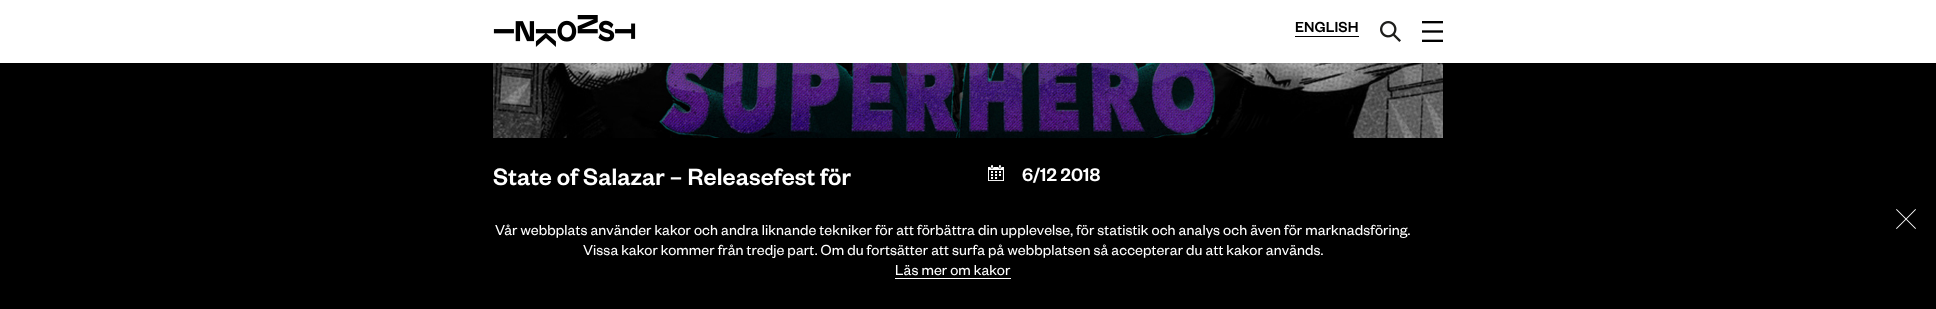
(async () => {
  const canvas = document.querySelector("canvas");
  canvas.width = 1936;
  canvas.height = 309;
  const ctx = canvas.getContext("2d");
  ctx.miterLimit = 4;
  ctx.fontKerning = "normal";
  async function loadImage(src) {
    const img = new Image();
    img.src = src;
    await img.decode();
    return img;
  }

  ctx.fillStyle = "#000000";
  ctx.fillRect(0, 0, 1936, 309);
  ctx.fillStyle = "#ffffff";
  ctx.fillRect(0, 0, 1936, 63);
  ctx.drawImage(await loadImage("img/1.png"), 493, 15, 143, 32);
  ctx.fillStyle = "#000000";
  ctx.fillRect(1295, 36, 64, 1);
  ctx.drawImage(await loadImage("img/2.png"), 1380, 21, 21, 21);
  ctx.drawImage(await loadImage("img/3.png"), 1422, 21, 21, 21);
  ctx.drawImage(await loadImage("img/4.png"), 493, 63, 950, 75);
  ctx.drawImage(await loadImage("img/5.png"), 988, 165, 16, 16);
  ctx.drawImage(await loadImage("img/6.png"), 1896, 209, 20, 20);
  ctx.fillStyle = "#ffffff";
  ctx.fillRect(895, 278, 116, 1);
  ctx.letterSpacing = "0.1px";
  ctx.font = "500 16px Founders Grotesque";
  ctx.fillStyle = "#000000";
  ctx.fillText("ENGLISH", 1295, 32);
  ctx.font = "500 26px Founders Grotesque";
  ctx.fillStyle = "#ffffff";
  ctx.fillText("State of Salazar – Releasefest för", 493, 185);
  ctx.font = "500 20px Founders Grotesque";
  ctx.fillText("6/12 2018", 1022, 181);
  ctx.font = "16px Founders Grotesque";
  for (const [text, x, y] of [
    ["Vår webbplats använder kakor och andra liknande tekniker för att förbättra din upplevelse, för statistik och analys och även för marknadsföring.", 495, 235],
    ["Vissa kakor kommer från tredje part. Om du fortsätter att surfa på webbplatsen så accepterar du att kakor används.", 583, 255],
    ["Läs mer om kakor", 895, 275],
  ]) {
    ctx.fillText(text, x, y);
  }
})();
